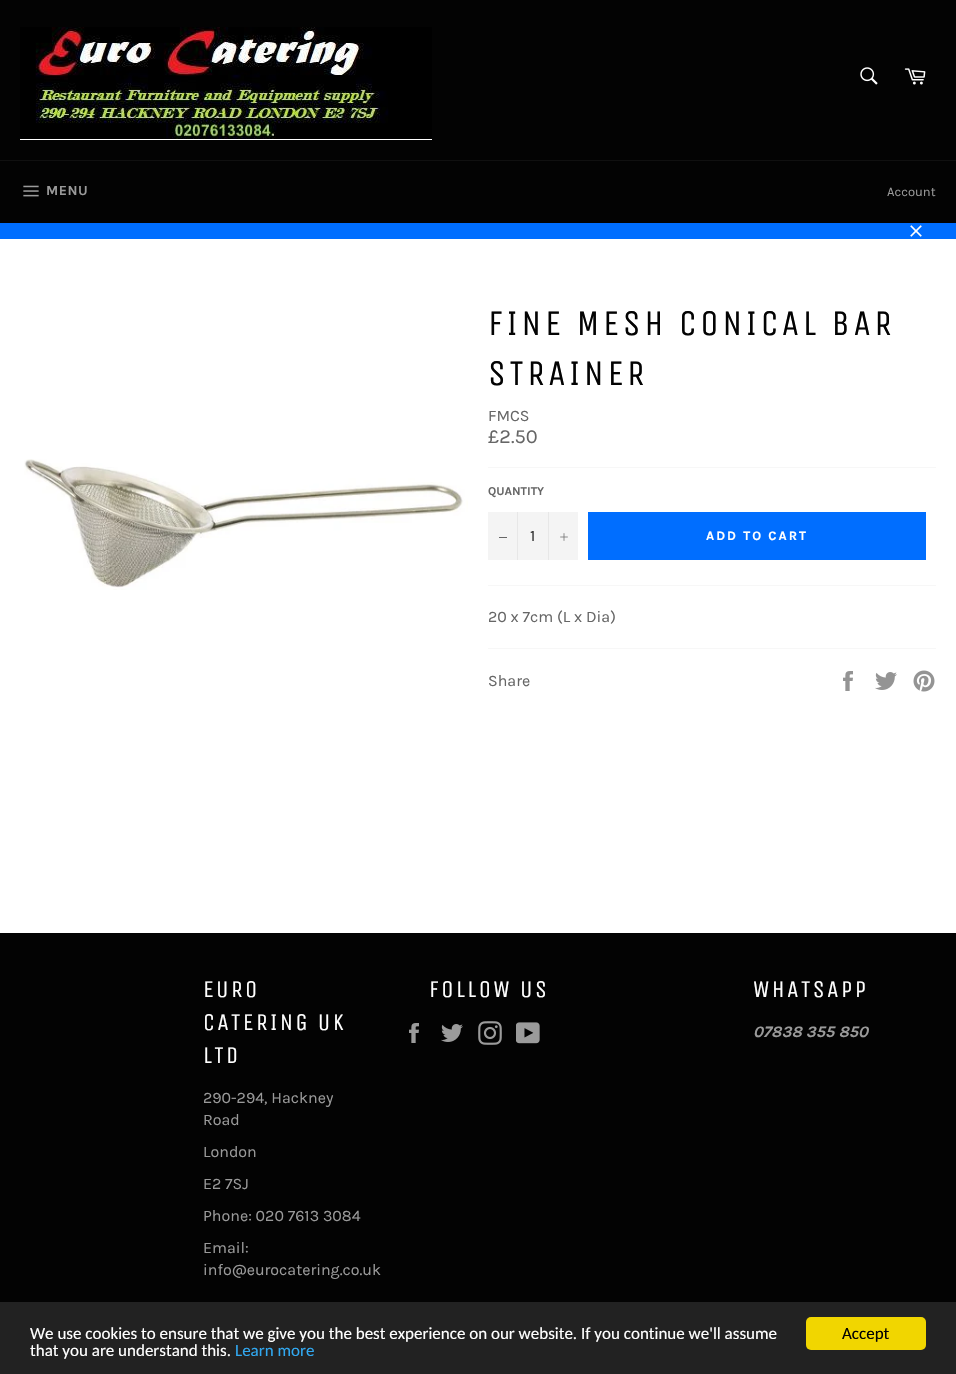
void draw(SkCanvas* c) {
SkPaint p;
p.setAntiAlias(true);
auto F=[&](const char* family, int weight, float size, bool italic = false){SkFontStyle style(weight, SkFontStyle::kNormal_Width,italic ? SkFontStyle::kItalic_Slant : SkFontStyle::kUpright_Slant);SkFont result(fontMgr->matchFamilyStyle(family, style), size);result.setSubpixel(true);return result;};
auto T=[&](const char* s, float x, float y, const SkFont& font){c->drawString(s, x, y, font, p);};
auto L=[&](const char* s, float x, float y, const SkFont& font, const SkPaint& ink, float letter, float word){std::vector<SkGlyphID> glyphs(font.countText(s, strlen(s), SkTextEncoding::kUTF8));std::vector<float> xs(glyphs.size());font.textToGlyphs(s, strlen(s), SkTextEncoding::kUTF8, glyphs);font.getXPos(glyphs, xs, x);float extra = 0;for (size_t i = 0; i < glyphs.size(); i++) {xs[i] += extra;extra += letter + word * (glyphs[i] == font.unicharToGlyph(' '));}c->drawTextBlob(SkTextBlob::MakeFromPosHGlyphs(glyphs, xs, y, font), 0, 0, ink);};
auto R=[&](float x, float y, float w, float h){c->drawRect(SkRect::MakeXYWH(x, y, w, h), p);};
auto Q=[&](float x, float y, float w, float h, float radius){c->drawRoundRect(SkRect::MakeXYWH(x, y, w, h), radius, radius, p);};
auto I=[&](const char* path, float x, float y, float w, float h){auto image = SkImages::DeferredFromEncodedData(SkData::MakeFromFileName(path));c->drawImageRect(image, SkRect::MakeXYWH(x, y, w, h), SkSamplingOptions());};
c->clear(0xff030303);
I("1.png",20,27,412,113);
I("2.png",860,67,18,18);
I("3.png",904,68,22,17);
p.setColor(0xff101010);
R(0,160,956,1);
I("4.png",23,185,16,12);
auto f1 = F("Karla",700,14);
p.setColor(0xff9a9a9a);
L("MENU",46,195,f1,p,.5,0);
auto f2 = F("Karla",400,13);
T("Account",887,196,f2);
p.setColor(0xff006eff);
R(0,223,956,16);
I("5.png",910,225,12,12);
p.setColor(0xffffffff);
R(0,239,956,694);
I("6.png",24,459,444,131);
auto f3 = F("Unica One",400,36);
p.setColor(0xff030303);
L("FINE MESH CONICAL BAR",488,335,f3,p,3.6,0);
L("STRAINER",488,385,f3,p,3.6,0);
auto f4 = F("Karla",400,16);
p.setColor(0xff666666);
T("FMCS",488,421,f4);
auto f5 = F("Karla",400,20);
T("£2.50",488,443,f5);
p.setColor(0xfff7f7f7);
R(488,467,448,1);
auto f6 = F("Karla",700,12);
p.setColor(0xff666666);
T("QUANTITY",488,495,f6);
p.setColor(0xfff4f4f4);
R(488,512,90,48);
p.setColor(0xffe7e7e7);
R(517,512,1,48);
p.setColor(0xff666666);
R(499,537,8,1);
p.setColor(0xff333333);
T("1",530,541,f4);
p.setColor(0xffe7e7e7);
R(548,512,1,48);
I("7.png",560,533,8,8);
p.setColor(0xff006eff);
R(588,512,338,48);
auto f7 = F("Karla",700,13);
p.setColor(0xffffffff);
L("ADD TO CART",706,540,f7,p,2,0);
p.setColor(0xfff7f7f7);
R(488,585,448,1);
p.setColor(0xff666666);
T("20 x 7cm (L x Dia)",488,622,f4);
p.setColor(0xfff7f7f7);
R(488,648,448,1);
p.setColor(0xff666666);
T("Share",488,686,f4);
I("8.png",843,671,10,20);
I("9.png",875,672,22,18);
I("10.png",913,670,22,22);
auto f8 = F("Unica One",400,24);
p.setColor(0xffffffff);
L("EURO",203,997,f8,p,2.4,0);
L("CATERING UK",203,1030,f8,p,2.4,0);
L("LTD",203,1063,f8,p,2.4,0);
p.setColor(0xff9a9a9a);
T("290-294, Hackney",203,1103,f4);
T("Road",203,1125,f4);
T("London",203,1157,f4);
T("E2 7SJ",203,1189,f4);
T("Phone: 020 7613 3084",203,1221,f4);
T("Email:",203,1253,f4);
T("info@eurocatering.co.uk",203,1275,f4);
p.setColor(0xffffffff);
L("FOLLOW US",429,997,f8,p,2.4,0);
I("11.png",409,1023,10,20);
I("12.png",441,1024,22,18);
I("13.png",478,1021,24,24);
I("14.png",516,1022,24,22);
L("WHATSAPP",753,997,f8,p,2.4,0);
auto f9 = F("Karla",700,16,true);
p.setColor(0xff9a9a9a);
T("07838 355 850",753,1037,f9);
p.setColor(0xff222222);
R(0,1302,956,72);
auto f10 = F("Carlito",400,17);
p.setColor(0xffffffff);
T("We use cookies to ensure that we give you the best experience on our website. If you continue we'll assume",30,1339,f10);
T("that you are understand this.",30,1356,f10);
p.setColor(0xff31a8f0);
T("Learn more",235,1356,f10);
p.setColor(0xfff1d600);
Q(806,1317,120,33,5);
p.setColor(0xff030303);
T("Accept",842,1339,f10);
}
